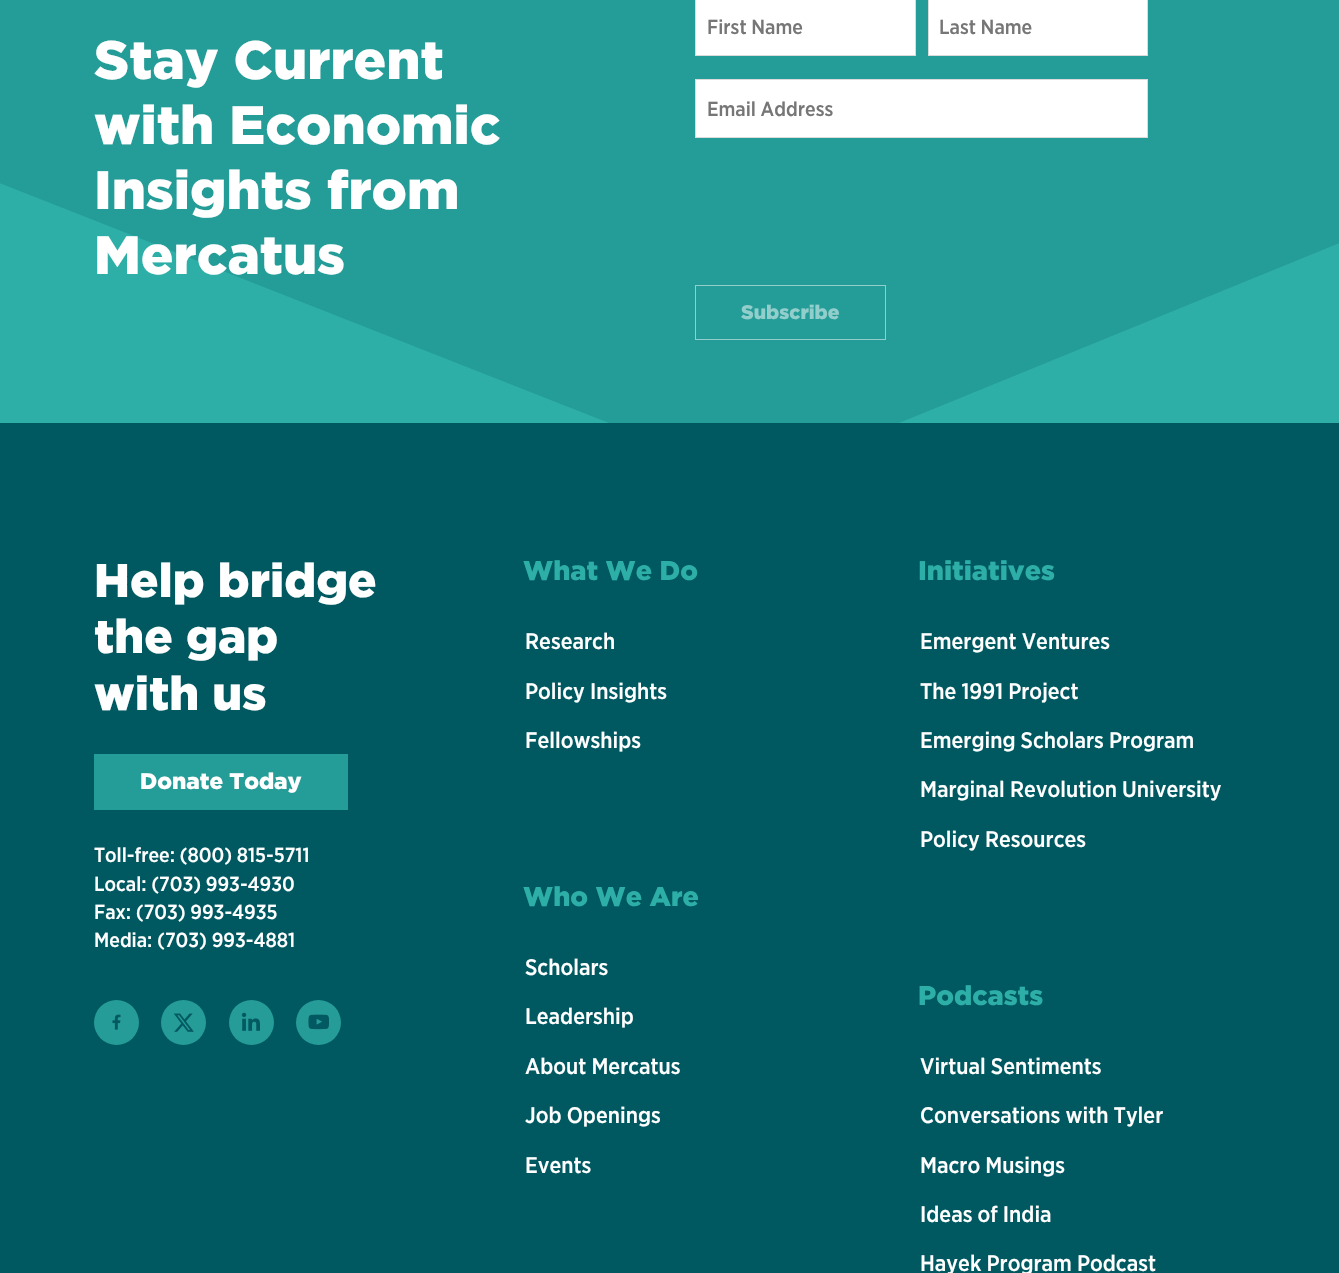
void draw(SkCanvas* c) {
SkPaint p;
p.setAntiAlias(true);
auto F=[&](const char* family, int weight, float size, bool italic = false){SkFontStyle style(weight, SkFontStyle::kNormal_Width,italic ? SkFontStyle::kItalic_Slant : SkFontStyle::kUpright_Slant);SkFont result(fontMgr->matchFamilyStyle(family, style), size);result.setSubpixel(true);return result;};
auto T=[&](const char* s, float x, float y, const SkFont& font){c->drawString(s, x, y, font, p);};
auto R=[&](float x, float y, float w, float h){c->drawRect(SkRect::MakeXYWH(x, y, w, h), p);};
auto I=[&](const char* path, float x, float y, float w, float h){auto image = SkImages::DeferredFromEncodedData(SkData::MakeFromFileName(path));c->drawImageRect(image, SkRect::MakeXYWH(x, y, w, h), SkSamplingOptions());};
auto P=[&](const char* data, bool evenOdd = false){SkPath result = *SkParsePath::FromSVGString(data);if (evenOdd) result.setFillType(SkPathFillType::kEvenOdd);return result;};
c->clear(0xff005961);
p.setColor(0xff249c97);
R(0,0,1339,423);
p.setColor(0xff2dafa8);
c->drawPath(P("M-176 423h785l-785-309z"),p);
c->drawPath(P("M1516 423v-252l-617 252z"),p);
auto f1 = F("Gotham",900,54);
p.setColor(0xffffffff);
T("Stay Current",94,79,f1);
T("with Economic",94,144,f1);
T("Insights from",94,209,f1);
T("Mercatus",94,274,f1);
c->drawRect(SkRect::MakeXYWH(695.5,-.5,220,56),p);
p.setStroke(true);
p.setStrokeWidth(1);
p.setColor(0xffdbdbdb);
c->drawRect(SkRect::MakeXYWH(695.5,-.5,220,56),p);
auto f2 = F("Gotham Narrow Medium",500,20.25);
p.setStroke(false);
p.setColor(0xff767676);
T("First Name",707,34,f2);
p.setColor(0xffffffff);
c->drawRect(SkRect::MakeXYWH(928.5,-.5,219,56),p);
p.setStroke(true);
p.setColor(0xffdbdbdb);
c->drawRect(SkRect::MakeXYWH(928.5,-.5,219,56),p);
p.setStroke(false);
p.setColor(0xff767676);
T("Last Name",939,34,f2);
p.setColor(0xffffffff);
c->drawRect(SkRect::MakeXYWH(695.5,79.5,452,58),p);
p.setStroke(true);
p.setColor(0xffdbdbdb);
c->drawRect(SkRect::MakeXYWH(695.5,79.5,452,58),p);
p.setStroke(false);
p.setColor(0xff767676);
T("Email Address",707,116,f2);
p.setStroke(true);
p.setColor(0xff92cecb);
c->drawRect(SkRect::MakeXYWH(695.5,285.5,190,54),p);
auto f3 = F("Gotham",900,19.5);
p.setStroke(false);
T("Subscribe",741,319,f3);
auto f4 = F("Gotham",900,47.25);
p.setColor(0xffffffff);
T("Help bridge",94,597,f4);
T("the gap",94,653,f4);
T("with us",94,710,f4);
p.setColor(0xff249c97);
R(94,754,254,56);
auto f5 = F("Gotham",900,22.5);
p.setColor(0xffffffff);
T("Donate Today",140,789,f5);
T("Toll-free: (800) 815-5711",94,862,f2);
T("Local: (703) 993-4930",94,891,f2);
T("Fax: (703) 993-4935",94,919,f2);
T("Media: (703) 993-4881",94,947,f2);
p.setColor(0xff259c97);
c->drawCircle(116.5,1022.5,22.5,p);
I("1.png",112,1014,9,16);
c->drawCircle(183.5,1022.5,22.5,p);
I("2.png",174,1013,20,19);
c->drawCircle(251.5,1022.5,22.5,p);
I("3.png",241,1012,19,19);
c->drawCircle(318.5,1022.5,22.5,p);
I("4.png",308,1014,21,16);
auto f6 = F("Gotham",900,27);
p.setColor(0xff2dafa8);
T("What We Do",523,580,f6);
auto f7 = F("Gotham Narrow Medium",500,22.5);
p.setColor(0xffffffff);
T("Research",525,649,f7);
T("Policy Insights",525,699,f7);
T("Fellowships",525,748,f7);
p.setColor(0xff2dafa8);
T("Initiatives",918,580,f6);
p.setColor(0xffffffff);
T("Emergent Ventures",920,649,f7);
T("The 1991 Project",920,699,f7);
T("Emerging Scholars Program",920,748,f7);
T("Marginal Revolution University",920,797,f7);
T("Policy Resources",920,847,f7);
p.setColor(0xff2dafa8);
T("Who We Are",523,906,f6);
p.setColor(0xffffffff);
T("Scholars",525,975,f7);
T("Leadership",525,1024,f7);
T("About Mercatus",525,1074,f7);
T("Job Openings",525,1123,f7);
T("Events",525,1173,f7);
p.setColor(0xff2dafa8);
T("Podcasts",918,1005,f6);
p.setColor(0xffffffff);
T("Virtual Sentiments",920,1074,f7);
T("Conversations with Tyler",920,1123,f7);
T("Macro Musings",920,1173,f7);
T("Ideas of India",920,1222,f7);
T("Hayek Program Podcast",920,1271,f7);
}
